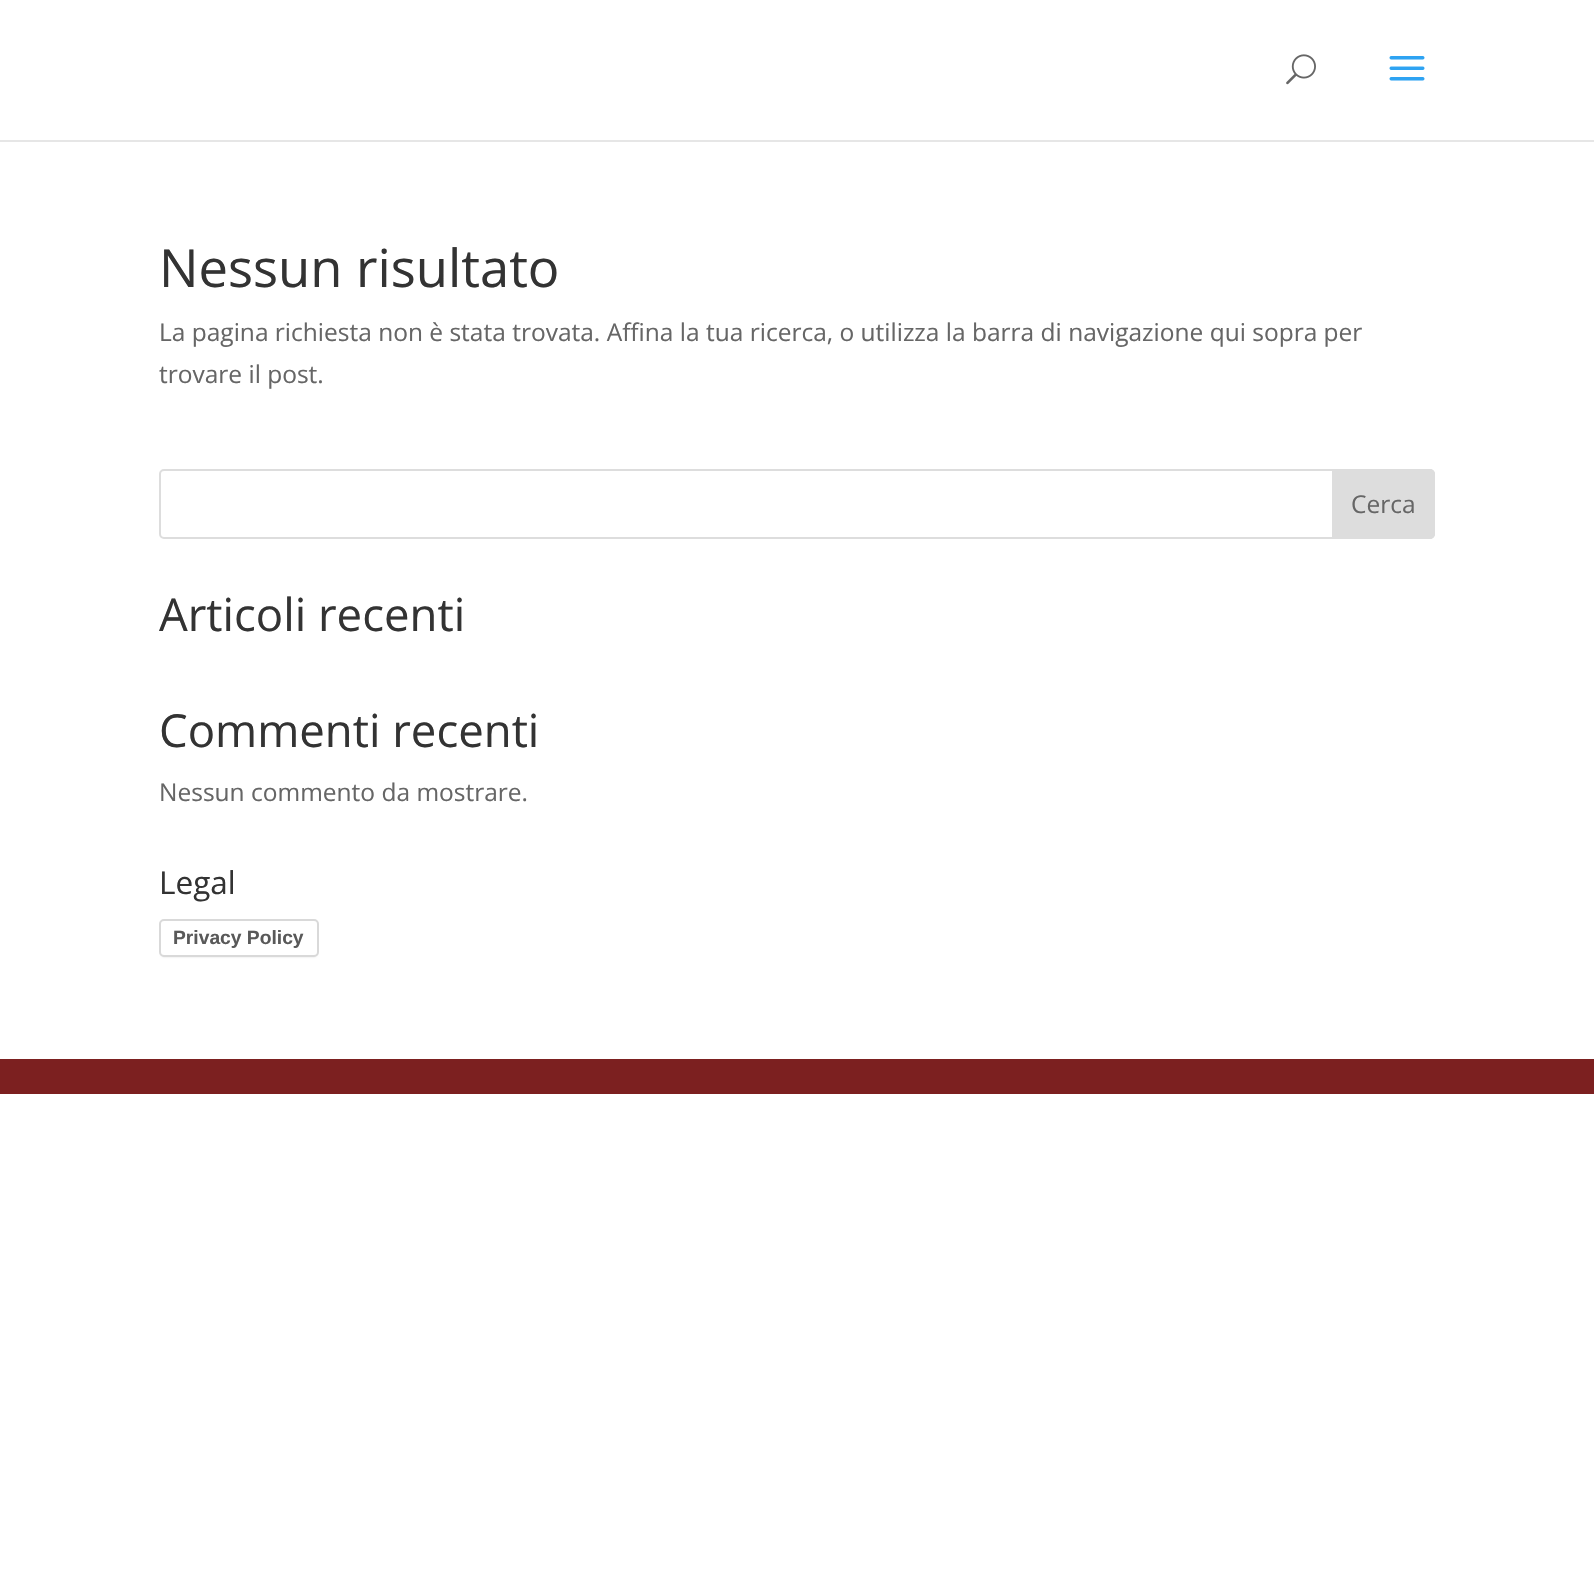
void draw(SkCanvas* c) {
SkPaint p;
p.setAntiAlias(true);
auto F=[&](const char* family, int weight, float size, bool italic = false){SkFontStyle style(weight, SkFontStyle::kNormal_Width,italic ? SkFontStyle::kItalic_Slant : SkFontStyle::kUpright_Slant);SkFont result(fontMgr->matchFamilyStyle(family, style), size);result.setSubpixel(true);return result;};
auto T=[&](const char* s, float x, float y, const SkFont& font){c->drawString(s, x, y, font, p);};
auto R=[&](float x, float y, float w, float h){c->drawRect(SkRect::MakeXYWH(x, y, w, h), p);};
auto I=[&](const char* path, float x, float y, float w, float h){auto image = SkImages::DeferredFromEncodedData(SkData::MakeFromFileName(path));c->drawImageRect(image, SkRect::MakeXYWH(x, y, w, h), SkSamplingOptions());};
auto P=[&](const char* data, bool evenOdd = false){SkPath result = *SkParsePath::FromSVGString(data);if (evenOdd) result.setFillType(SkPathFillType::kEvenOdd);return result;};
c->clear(0xffffffff);
p.setColor(0xffe6e6e6);
R(0,140,1594,2);
I("1.png",1286,54,30,31);
I("2.png",1389,56,36,25);
auto f1 = F("Open Sans",400,52.5);
p.setColor(0xff333333);
T("Nessun risultato",159,287,f1);
auto f2 = F("Open Sans",400,24.5);
p.setColor(0xff666666);
T("La pagina richiesta non è stata trovata. Affina la tua ricerca, o utilizza la barra di navigazione qui sopra per",159,341,f2);
T("trovare il post.",159,383,f2);
p.setStroke(true);
p.setStrokeWidth(2);
p.setColor(0xffdddddd);
c->drawRoundRect(SkRect::MakeXYWH(160,470,1274,68),4,4,p);
p.setStroke(false);
c->drawPath(P("M1333 470h97c2 0 4 2 4 4v60c0 2-2 4-4 4h-97z"),p);
p.setStroke(true);
c->drawPath(P("M1333 470h97c2 0 4 2 4 4v60c0 2-2 4-4 4h-97z"),p);
p.setStroke(false);
p.setColor(0xff666666);
T("Cerca",1351,513,f2);
auto f3 = F("Open Sans",400,45.5);
p.setColor(0xff333333);
T("Articoli recenti",159,631,f3);
T("Commenti recenti",159,747,f3);
p.setColor(0xff666666);
T("Nessun commento da mostrare.",159,801,f2);
auto f4 = F("Open Sans",400,31.5);
p.setColor(0xff333333);
T("Legal",159,894,f4);
p.setColor(0x26000000);
p.setMaskFilter(SkMaskFilter::MakeBlur(kNormal_SkBlurStyle, 1));
c->drawRoundRect(SkRect::MakeXYWH(161,922,156,35),4,4,p);
p.setMaskFilter(nullptr);
p.setColor(0xffffffff);
c->drawRoundRect(SkRect::MakeXYWH(160,920,158,36),4,4,p);
p.setStroke(true);
p.setColor(0xffd9d9d9);
c->drawRoundRect(SkRect::MakeXYWH(160,920,158,36),4,4,p);
auto f5 = F("Liberation Sans",700,19.25);
p.setStroke(false);
p.setColor(0xff595959);
T("Privacy Policy",173,944,f5);
p.setColor(0xff7c2020);
R(0,1059,1594,35);
}
